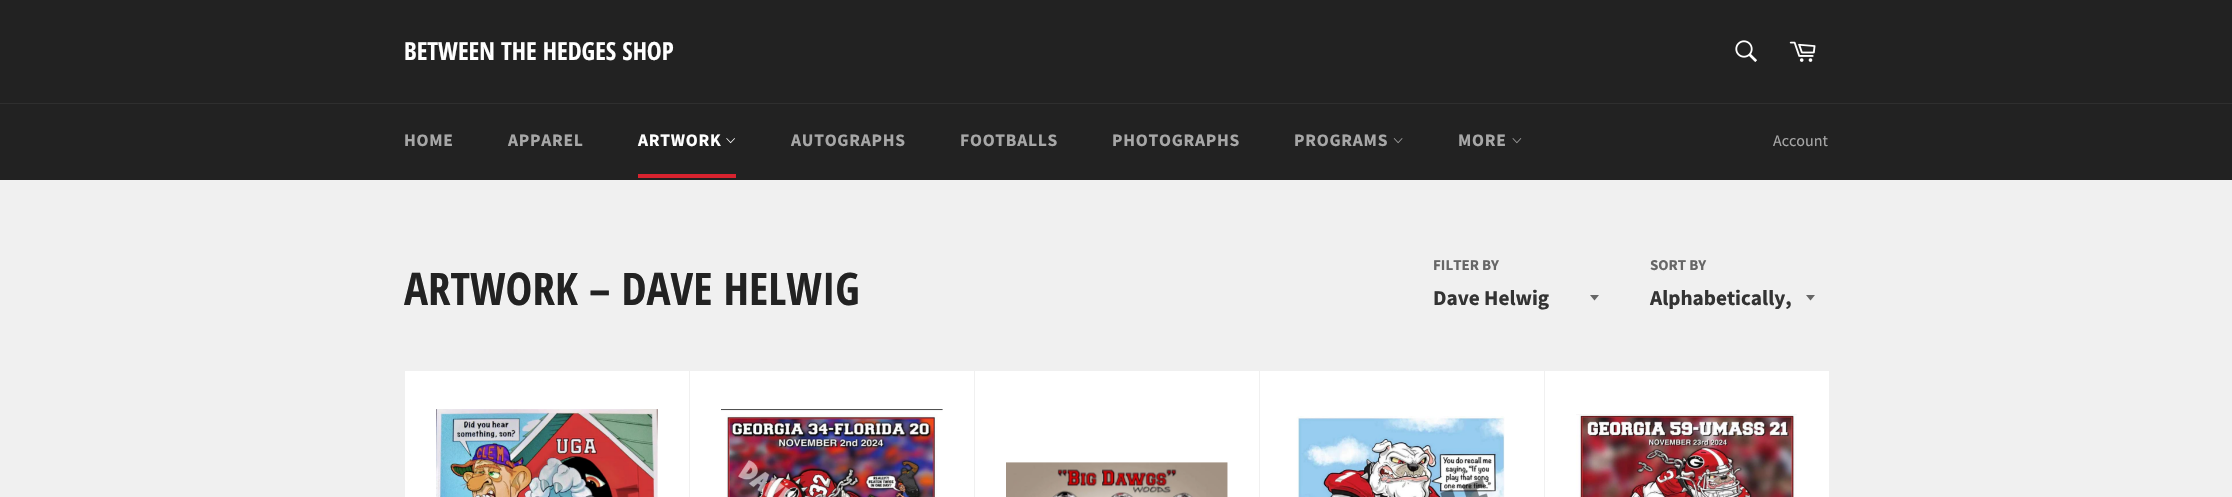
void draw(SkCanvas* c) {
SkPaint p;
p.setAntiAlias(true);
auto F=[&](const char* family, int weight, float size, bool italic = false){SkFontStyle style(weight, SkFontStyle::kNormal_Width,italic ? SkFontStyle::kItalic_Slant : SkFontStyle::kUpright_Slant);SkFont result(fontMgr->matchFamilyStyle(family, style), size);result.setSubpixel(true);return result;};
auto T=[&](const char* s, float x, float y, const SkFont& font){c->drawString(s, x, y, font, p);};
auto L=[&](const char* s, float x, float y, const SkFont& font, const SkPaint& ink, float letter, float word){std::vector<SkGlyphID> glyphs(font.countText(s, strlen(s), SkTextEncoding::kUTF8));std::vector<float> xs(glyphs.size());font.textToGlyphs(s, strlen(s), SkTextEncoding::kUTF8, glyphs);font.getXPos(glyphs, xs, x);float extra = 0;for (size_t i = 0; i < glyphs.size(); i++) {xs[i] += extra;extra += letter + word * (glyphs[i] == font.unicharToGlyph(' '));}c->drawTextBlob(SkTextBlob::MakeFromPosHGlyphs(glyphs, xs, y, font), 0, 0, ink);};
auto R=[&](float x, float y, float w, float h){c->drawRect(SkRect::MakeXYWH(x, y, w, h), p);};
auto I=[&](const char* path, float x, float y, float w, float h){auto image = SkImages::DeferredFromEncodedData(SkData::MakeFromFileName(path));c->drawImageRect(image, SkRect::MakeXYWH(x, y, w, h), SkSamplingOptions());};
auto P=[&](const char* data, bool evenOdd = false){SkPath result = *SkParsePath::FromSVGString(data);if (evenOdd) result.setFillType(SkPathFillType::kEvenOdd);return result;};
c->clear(0xfff0f0f0);
p.setColor(0xff222222);
R(0,0,2232,180);
auto f1 = F("Open Sans Condensed",700,25);
p.setColor(0xffffffff);
T("BETWEEN THE HEDGES SHOP",404,60,f1);
I("1.png",1735,40,22,22);
I("2.png",1789,41,27,21);
p.setColor(0xff2f2f2f);
R(0,103,2232,1);
auto f2 = F("Source Sans Pro",700,17.5);
p.setColor(0xffa7a7a7);
L("HOME",404,146,f2,p,.75,0);
L("APPAREL",508,146,f2,p,.75,0);
p.setColor(0xffffffff);
L("ARTWORK",638,146,f2,p,.75,0);
I("3.png",726,138,9,6);
p.setColor(0xffd8232f);
R(638,174,98,4);
p.setColor(0xffa7a7a7);
L("AUTOGRAPHS",791,146,f2,p,.75,0);
L("FOOTBALLS",960,146,f2,p,.75,0);
L("PHOTOGRAPHS",1112,146,f2,p,.75,0);
L("PROGRAMS",1294,146,f2,p,.75,0);
I("4.png",1393,138,10,6);
L("MORE",1458,146,f2,p,.75,0);
I("5.png",1512,138,10,6);
auto f3 = F("Source Sans Pro",400,16);
T("Account",1773,146,f3);
auto f4 = F("Open Sans Condensed",700,45);
p.setColor(0xff222222);
T("ARTWORK – DAVE HELWIG",404,305,f4);
auto f5 = F("Source Sans Pro",700,15);
p.setColor(0xff666666);
T("FILTER BY",1433,270,f5);
c->drawPath(P("M1590 295l4.5 5.5l4.5-5.5z"),p);
auto f6 = F("Source Sans Pro",700,21.25);
p.setColor(0xff333333);
T("Dave Helwig",1433,305,f6);
p.setColor(0xff666666);
T("SORT BY",1650,270,f5);
c->drawPath(P("M1806 295l4.5 5.5l4.5-5.5z"),p);
p.setColor(0xff333333);
T("Alphabetically,",1650,305,f6);
p.setColor(0xffffffff);
R(405,371,284,126);
I("6.png",436,409,222,88);
R(690,371,284,126);
I("7.png",721,409,222,88);
R(975,371,284,126);
I("8.png",1006,462,222,35);
R(1260,371,284,126);
I("9.png",1296,416,209,81);
R(1545,371,284,126);
I("10.png",1576,414,221,83);
}
